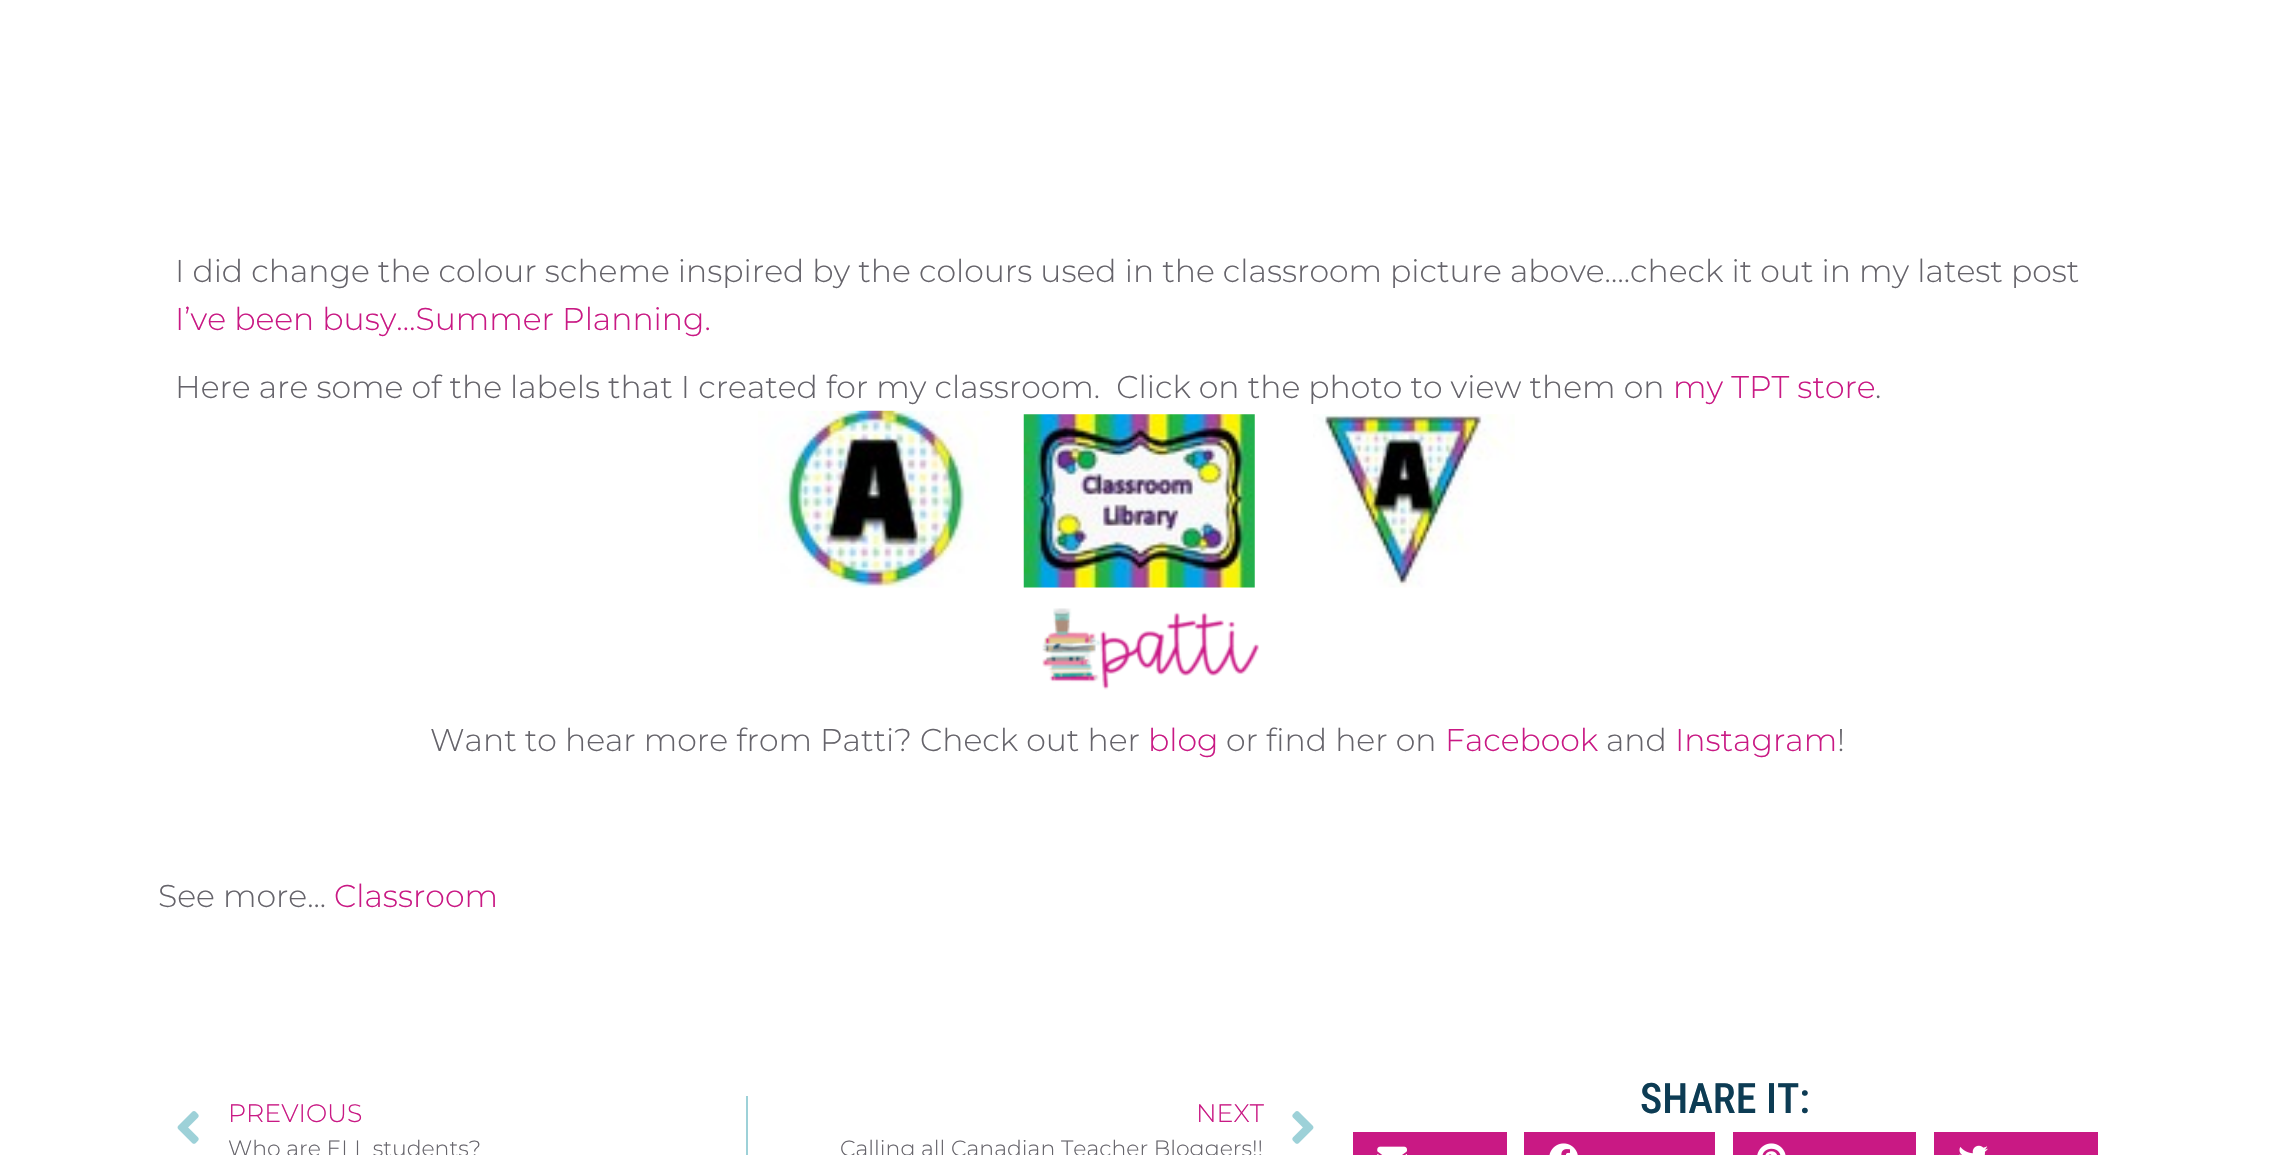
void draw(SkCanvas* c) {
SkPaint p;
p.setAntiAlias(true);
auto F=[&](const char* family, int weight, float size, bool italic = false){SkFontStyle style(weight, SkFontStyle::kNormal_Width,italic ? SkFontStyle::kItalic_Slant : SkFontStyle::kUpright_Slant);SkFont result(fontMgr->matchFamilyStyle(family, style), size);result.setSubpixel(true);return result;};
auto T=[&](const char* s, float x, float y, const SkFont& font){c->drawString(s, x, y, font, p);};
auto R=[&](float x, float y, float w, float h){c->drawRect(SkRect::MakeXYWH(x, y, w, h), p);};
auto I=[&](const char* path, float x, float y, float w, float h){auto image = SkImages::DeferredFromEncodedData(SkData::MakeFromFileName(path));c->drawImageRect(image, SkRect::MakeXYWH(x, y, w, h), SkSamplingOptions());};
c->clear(0xffffffff);
auto f1 = F("Montserrat",300,31.5);
p.setColor(0xff65636a);
T("I did change the colour scheme inspired by the colours used in the classroom picture above….check it out in my latest post",175,282,f1);
p.setColor(0xffc91984);
T("I’ve been busy…Summer Planning.",175,330,f1);
p.setColor(0xff65636a);
T("Here are some of the labels that I created for my classroom.  Click on the photo to view them on",175,398,f1);
p.setColor(0xffc91984);
T("my TPT store",1673,398,f1);
p.setColor(0xff65636a);
T(".",1875,398,f1);
I("1.png",758,410,232,178);
I("2.png",1023,414,232,174);
I("3.png",1313,414,202,174);
I("4.png",1042,608,217,82);
T("Want to hear more from Patti? Check out her",430,751,f1);
p.setColor(0xffc91984);
T("blog",1148,751,f1);
p.setColor(0xff65636a);
T("or find her on",1226,751,f1);
p.setColor(0xffc91984);
T("Facebook",1445,751,f1);
p.setColor(0xff65636a);
T("and",1606,751,f1);
p.setColor(0xffc91984);
T("Instagram",1675,751,f1);
p.setColor(0xff65636a);
T("!",1837,751,f1);
T("See more...",158,907,f1);
p.setColor(0xffc91984);
T("Classroom",334,907,f1);
auto f2 = F("Roboto Condensed",500,42);
p.setColor(0xff0d3c54);
T("SHARE IT:",1640,1113,f2);
p.setColor(0xffc91984);
R(1353,1132,154,23);
I("5.png",1377,1146,30,9);
R(1524,1132,191,23);
I("6.png",1549,1143,29,12);
R(1733,1132,183,23);
I("7.png",1757,1143,29,12);
R(1934,1132,164,23);
I("8.png",1959,1145,29,10);
I("9.png",177,1111,22,33);
auto f3 = F("Montserrat",300,25.25);
T("PREVIOUS",228,1122,f3);
auto f4 = F("Montserrat",300,22);
p.setColor(0xff65636a);
T("Who are ELL students?",228,1156,f4);
p.setColor(0xff9dd1d8);
R(746,1096,2,59);
p.setColor(0xffc91984);
T("NEXT",1196,1122,f3);
p.setColor(0xff65636a);
T("Calling all Canadian Teacher Bloggers!!",840,1156,f4);
I("10.png",1292,1111,22,33);
}
